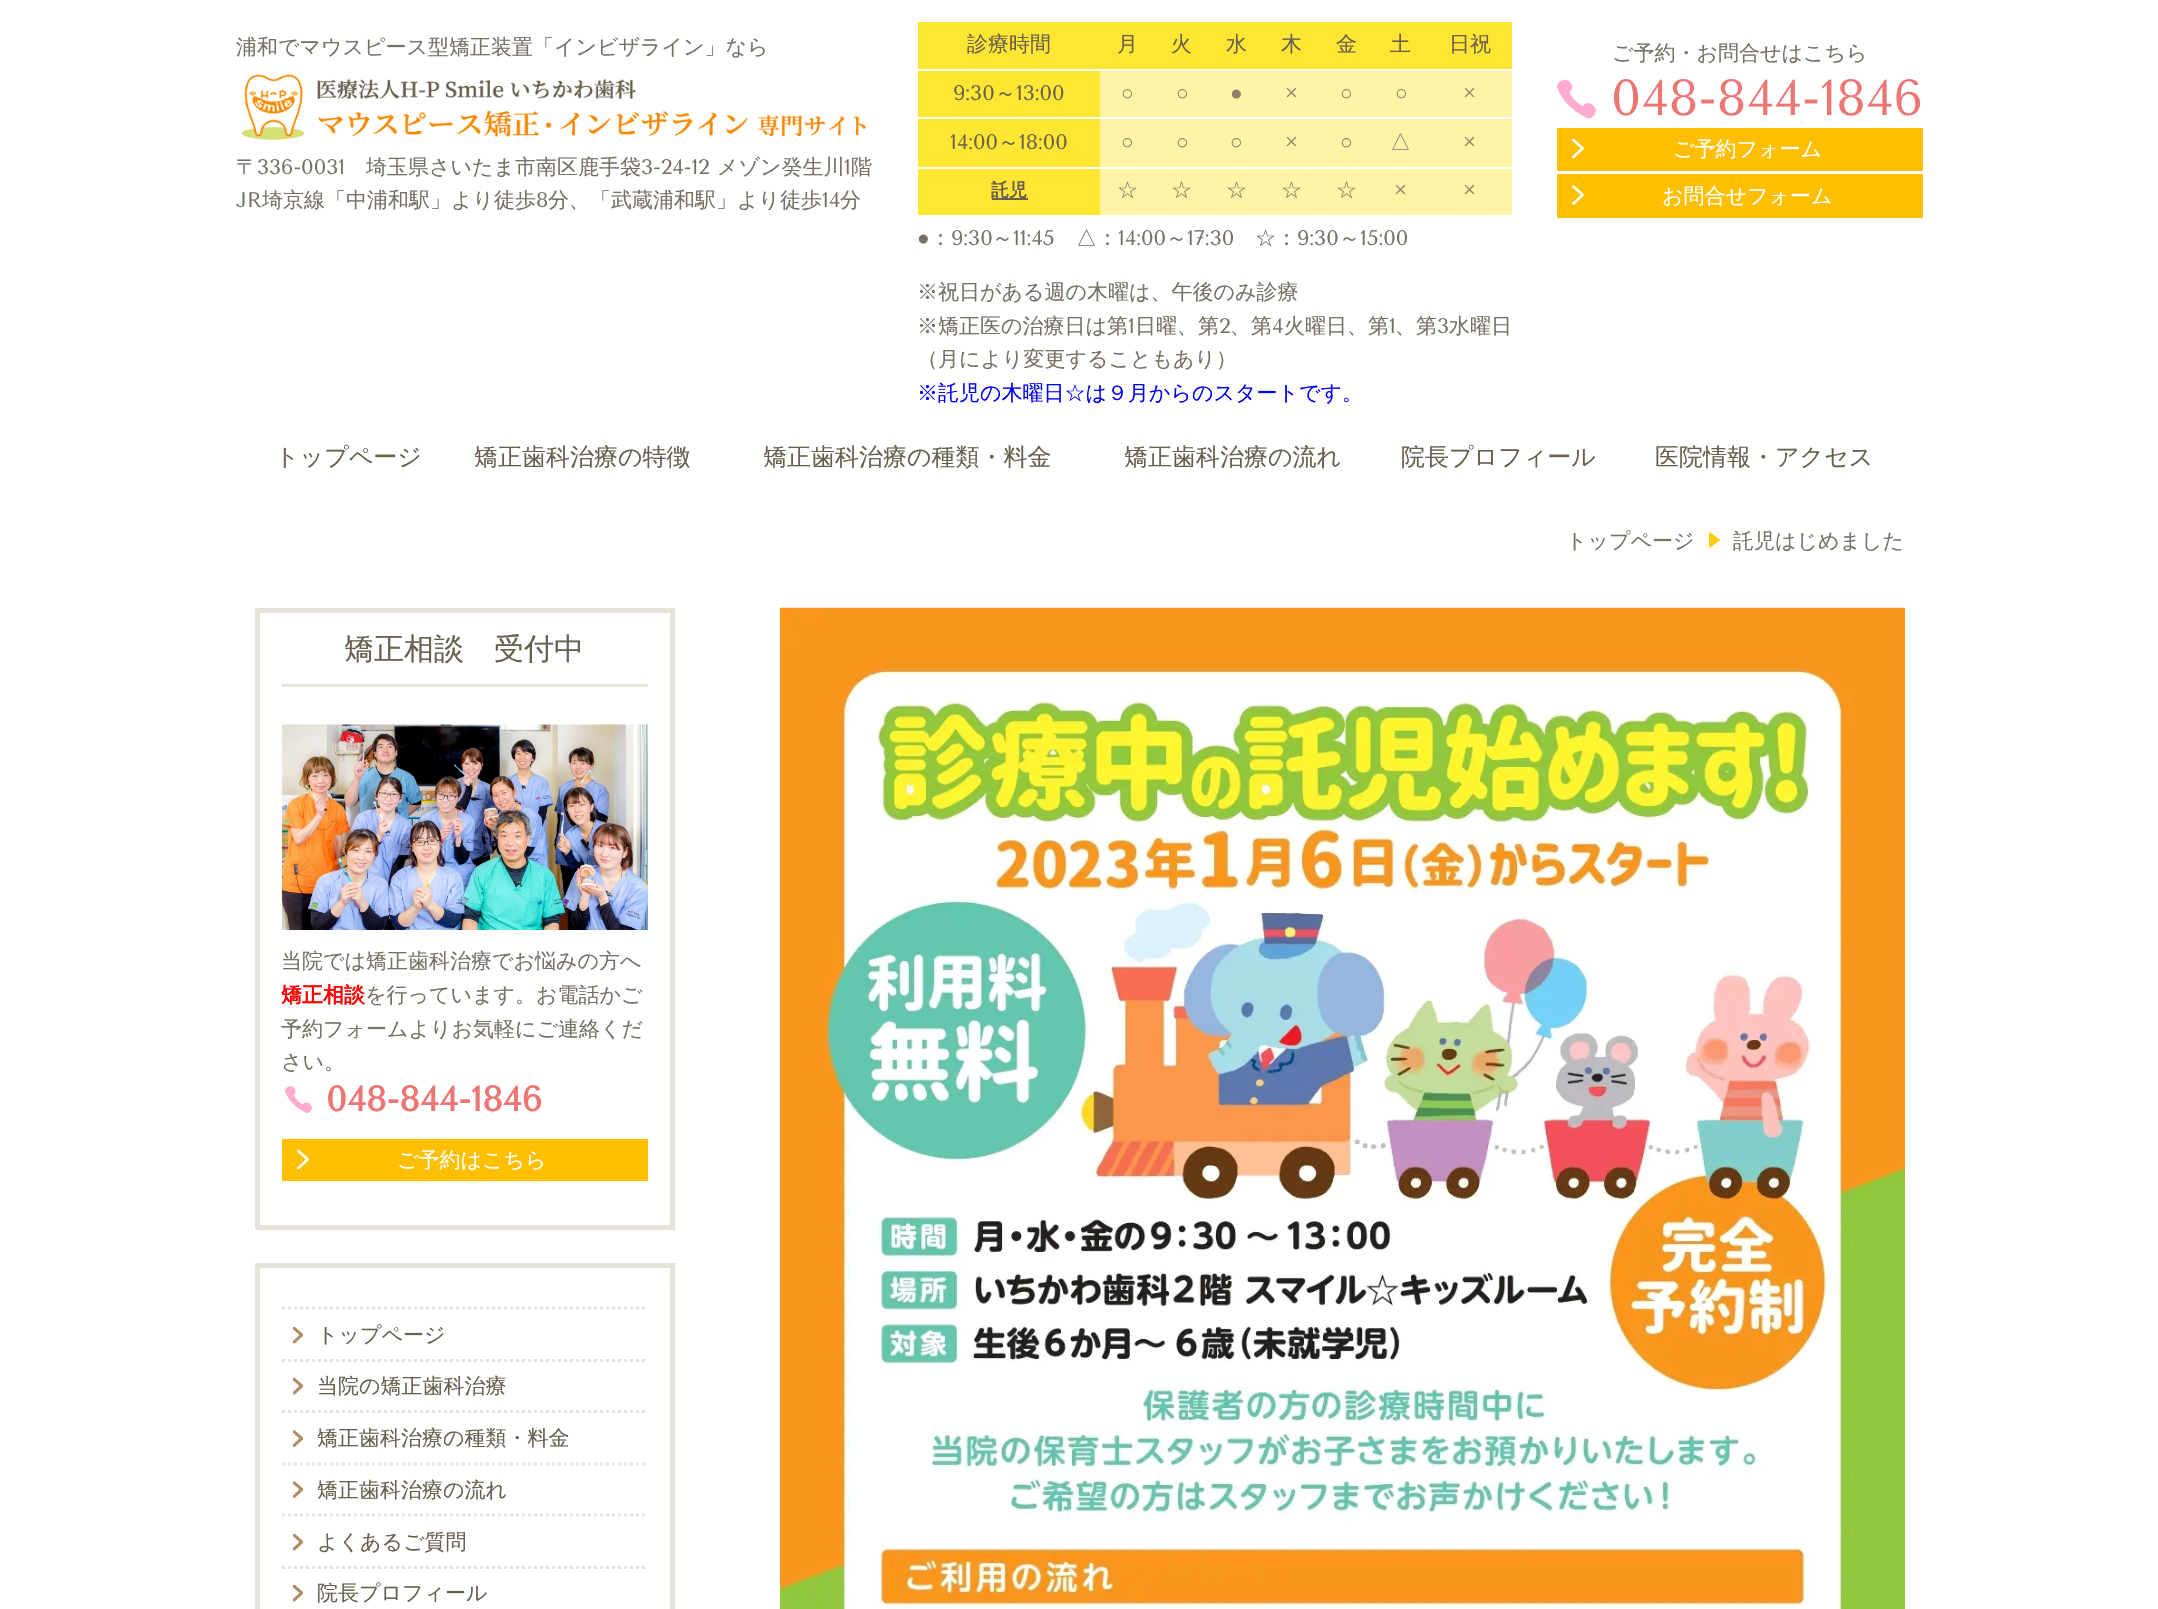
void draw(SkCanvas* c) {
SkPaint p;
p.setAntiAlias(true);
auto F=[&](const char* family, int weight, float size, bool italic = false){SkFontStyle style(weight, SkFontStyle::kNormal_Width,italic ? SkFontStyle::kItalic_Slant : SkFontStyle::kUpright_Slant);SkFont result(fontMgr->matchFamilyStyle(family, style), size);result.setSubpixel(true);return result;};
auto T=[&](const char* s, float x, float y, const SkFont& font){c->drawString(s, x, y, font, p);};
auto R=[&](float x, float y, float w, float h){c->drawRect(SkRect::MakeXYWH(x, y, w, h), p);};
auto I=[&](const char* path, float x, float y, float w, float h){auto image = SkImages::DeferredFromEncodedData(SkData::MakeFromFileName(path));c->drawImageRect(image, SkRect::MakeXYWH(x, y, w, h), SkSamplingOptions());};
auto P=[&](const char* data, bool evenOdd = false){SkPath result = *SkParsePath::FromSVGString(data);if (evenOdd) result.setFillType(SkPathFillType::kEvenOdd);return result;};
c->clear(0xffffffff);
auto f1 = F("WenQuanYi Zen Hei",500,21);
p.setColor(0xff767065);
T("浦和でマウスピース型矯正装置「インビザライン」なら",236,54,f1);
I("1.png",241,74,625,66);
T("〒",236,174,f1);
auto f2 = F("Tenor Sans",400,21);
T("336-0031",257,174,f2);
T("埼玉県さいたま市南区鹿手袋",366,174,f1);
T("3-24-12",641,174,f2);
T("メゾン癸生川",717,174,f1);
T("1",844,174,f2);
T("階",851,174,f1);
T("JR",236,207,f2);
T("埼京線「中浦和駅」より徒歩",262,207,f1);
T("8",536,207,f2);
T("分、「武蔵浦和駅」より徒歩",548,207,f1);
T("14",822,207,f2);
T("分",840,207,f1);
p.setColor(0xffffe632);
R(918,22,594,47);
p.setColor(0xff675f4f);
T("診療時間",967,51,f1);
T("月",1117,51,f1);
T("火",1171,51,f1);
T("水",1226,51,f1);
T("木",1281,51,f1);
T("金",1336,51,f1);
T("土",1390,51,f1);
T("日祝",1449,51,f1);
p.setColor(0xffffe632);
R(918,71,182,46);
p.setColor(0xff675f4f);
T("9:30",953,100,f2);
T("～",995,100,f1);
T("13:00",1016,100,f2);
p.setColor(0xfffff4a5);
R(1100,71,412,46);
auto f3 = F("Liberation Sans",400,21);
p.setColor(0xff957d6c);
T("○",1121,100,f3);
T("○",1176,100,f3);
T("●",1230,100,f3);
T("×",1285,100,f2);
T("○",1340,100,f3);
T("○",1395,100,f3);
T("×",1463,100,f2);
p.setColor(0xffffe632);
R(918,119,182,48);
p.setColor(0xff675f4f);
T("14:00",950,149,f2);
T("～",998,149,f1);
T("18:00",1019,149,f2);
p.setColor(0xfffff4a5);
R(1100,119,412,48);
p.setColor(0xff957d6c);
T("○",1121,149,f3);
T("○",1176,149,f3);
T("○",1230,149,f3);
T("×",1285,149,f2);
T("○",1340,149,f3);
T("△",1390,149,f1);
T("×",1463,149,f2);
p.setColor(0xffffe632);
R(918,169,182,46);
p.setColor(0xff675f4f);
R(992,198,36,2);
auto f4 = F("WenQuanYi Zen Hei",700,18);
T("託児",991,196,f4);
p.setColor(0xfffff4a5);
R(1100,169,412,46);
p.setColor(0xff957d6c);
T("☆",1117,197,f1);
T("☆",1171,197,f1);
T("☆",1226,197,f1);
T("☆",1281,197,f1);
T("☆",1336,197,f1);
T("×",1394,197,f2);
T("×",1463,197,f2);
p.setColor(0xff767065);
T("●",917,245,f3);
T("：",930,245,f1);
T("9:30",951,245,f2);
T("～",992,245,f1);
T("11:45",1013,245,f2);
T("△：",1076,245,f1);
T("14:00",1118,245,f2);
T("～",1166,245,f1);
T("17:30",1187,245,f2);
T("☆：",1255,245,f1);
T("9:30",1297,245,f2);
T("～",1339,245,f1);
T("15:00",1360,245,f2);
T("※祝日がある週の木曜は、午後のみ診療",917,299,f1);
T("※矯正医の治療日は第",917,333,f1);
T("1",1128,333,f2);
T("日曜、第",1135,333,f1);
T("2",1219,333,f2);
T("、第",1230,333,f1);
T("4",1272,333,f2);
T("火曜日、第",1284,333,f1);
T("1",1389,333,f2);
T("、第",1395,333,f1);
T("3",1437,333,f2);
T("水曜日",1449,333,f1);
T("（月により変更することもあり）",917,366,f1);
p.setColor(0xff0000ff);
T("※託児の木曜日☆は９月からのスタートです。",917,400,f1);
p.setColor(0xff767065);
T("ご予約・お問合せはこちら",1612,60,f1);
I("2.png",1557,80,39,39);
auto f5 = F("Tenor Sans",400,50.5);
p.setColor(0xffed7573);
T("048-844-1846",1611,115,f5);
p.setColor(0xfffebf00);
R(1557,128,366,43);
I("3.png",1572,138,12,21);
p.setColor(0xffffffff);
T("ご予約フォーム",1673,156,f1);
p.setColor(0xfffebf00);
R(1557,174,366,44);
I("4.png",1572,185,12,20);
p.setColor(0xffffffff);
T("お問合せフォーム",1662,203,f1);
auto f6 = F("WenQuanYi Zen Hei",500,24);
p.setColor(0xff675f4f);
T("トップページ",275,465,f6);
T("矯正歯科治療の特徴",474,465,f6);
T("矯正歯科治療の種類・料金",763,465,f6);
T("矯正歯科治療の流れ",1124,465,f6);
T("院長プロフィール",1401,465,f6);
T("医院情報・アクセス",1655,465,f6);
p.setColor(0xff767065);
T("トップページ",1566,548,f1);
c->save();
c->clipRect(SkRect::MakeXYWH(1709,531,12,18));
p.setColor(0xffffcc00);
c->drawPath(P("M1708.5 531.5l12 8.5l-12 8.5z",true),p);
c->restore();
p.setColor(0xff767065);
T("託児はじめました",1733,548,f1);
p.setStroke(true);
p.setStrokeWidth(5);
p.setColor(0xffe6e3db);
c->drawRect(SkRect::MakeXYWH(257.5,610.5,415,617),p);
p.setStroke(false);
R(282,684,366,3);
auto f7 = F("WenQuanYi Zen Hei",500,30);
p.setColor(0xff675f4f);
T("矯正相談　受付中",344,659,f7);
I("5.png",282,724,366,206);
p.setColor(0xff767065);
T("当院では矯正歯科治療でお悩みの方へ",281,968,f1);
auto f8 = F("WenQuanYi Zen Hei",700,21);
p.setColor(0xffff0000);
T("矯正相談",281,1002,f8);
p.setColor(0xff767065);
T("を行っています。お電話かご",365,1002,f1);
T("予約フォームよりお気軽にご連絡くだ",281,1036,f1);
T("さい。",281,1069,f1);
I("6.png",285,1086,27,27);
auto f9 = F("Tenor Sans",700,35);
p.setColor(0xffed7573);
T("048-844-1846",326,1111,f9);
p.setColor(0xfffebf00);
R(282,1139,366,42);
I("3.png",297,1149,12,21);
p.setColor(0xffffffff);
T("ご予約はこちら",397,1167,f1);
p.setStroke(true);
p.setColor(0xffe6e3db);
c->drawRect(SkRect::MakeXYWH(257.5,1265.5,415,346),p);
p.setStrokeWidth(3);
p.setPathEffect(SkDashPathEffect::Make({{3,3}}, 0));
c->drawPath(P("M282 1308h366"),p);
p.setPathEffect(nullptr);
I("7.png",293,1326,10,18);
p.setStroke(false);
p.setColor(0xff675f4f);
T("トップページ",317,1342,f1);
p.setStroke(true);
p.setColor(0xffe6e3db);
p.setPathEffect(SkDashPathEffect::Make({{3,3}}, 0));
c->drawPath(P("M282 1360.5h366"),p);
p.setPathEffect(nullptr);
I("7.png",293,1377,10,18);
p.setStroke(false);
p.setColor(0xff675f4f);
T("当院の矯正歯科治療",317,1393,f1);
p.setStroke(true);
p.setColor(0xffe6e3db);
p.setPathEffect(SkDashPathEffect::Make({{3,3}}, 0));
c->drawPath(P("M282 1411.5h366"),p);
p.setPathEffect(nullptr);
I("8.png",293,1430,10,17);
p.setStroke(false);
p.setColor(0xff675f4f);
T("矯正歯科治療の種類・料金",317,1445,f1);
p.setStroke(true);
p.setColor(0xffe6e3db);
p.setPathEffect(SkDashPathEffect::Make({{3,3}}, 0));
c->drawPath(P("M282 1464h366"),p);
p.setPathEffect(nullptr);
I("8.png",293,1481,10,17);
p.setStroke(false);
p.setColor(0xff675f4f);
T("矯正歯科治療の流れ",317,1497,f1);
p.setStroke(true);
p.setColor(0xffe6e3db);
p.setPathEffect(SkDashPathEffect::Make({{3,3}}, 0));
c->drawPath(P("M282 1515h366"),p);
p.setPathEffect(nullptr);
I("7.png",293,1533,10,18);
p.setStroke(false);
p.setColor(0xff675f4f);
T("よくあるご質問",317,1549,f1);
p.setStroke(true);
p.setColor(0xffe6e3db);
p.setPathEffect(SkDashPathEffect::Make({{3,3}}, 0));
c->drawPath(P("M282 1567.5h366"),p);
p.setPathEffect(nullptr);
I("7.png",293,1584,10,18);
p.setStroke(false);
p.setColor(0xff675f4f);
T("院長プロフィール",317,1600,f1);
I("9.png",780,607,1125,1002);
}
